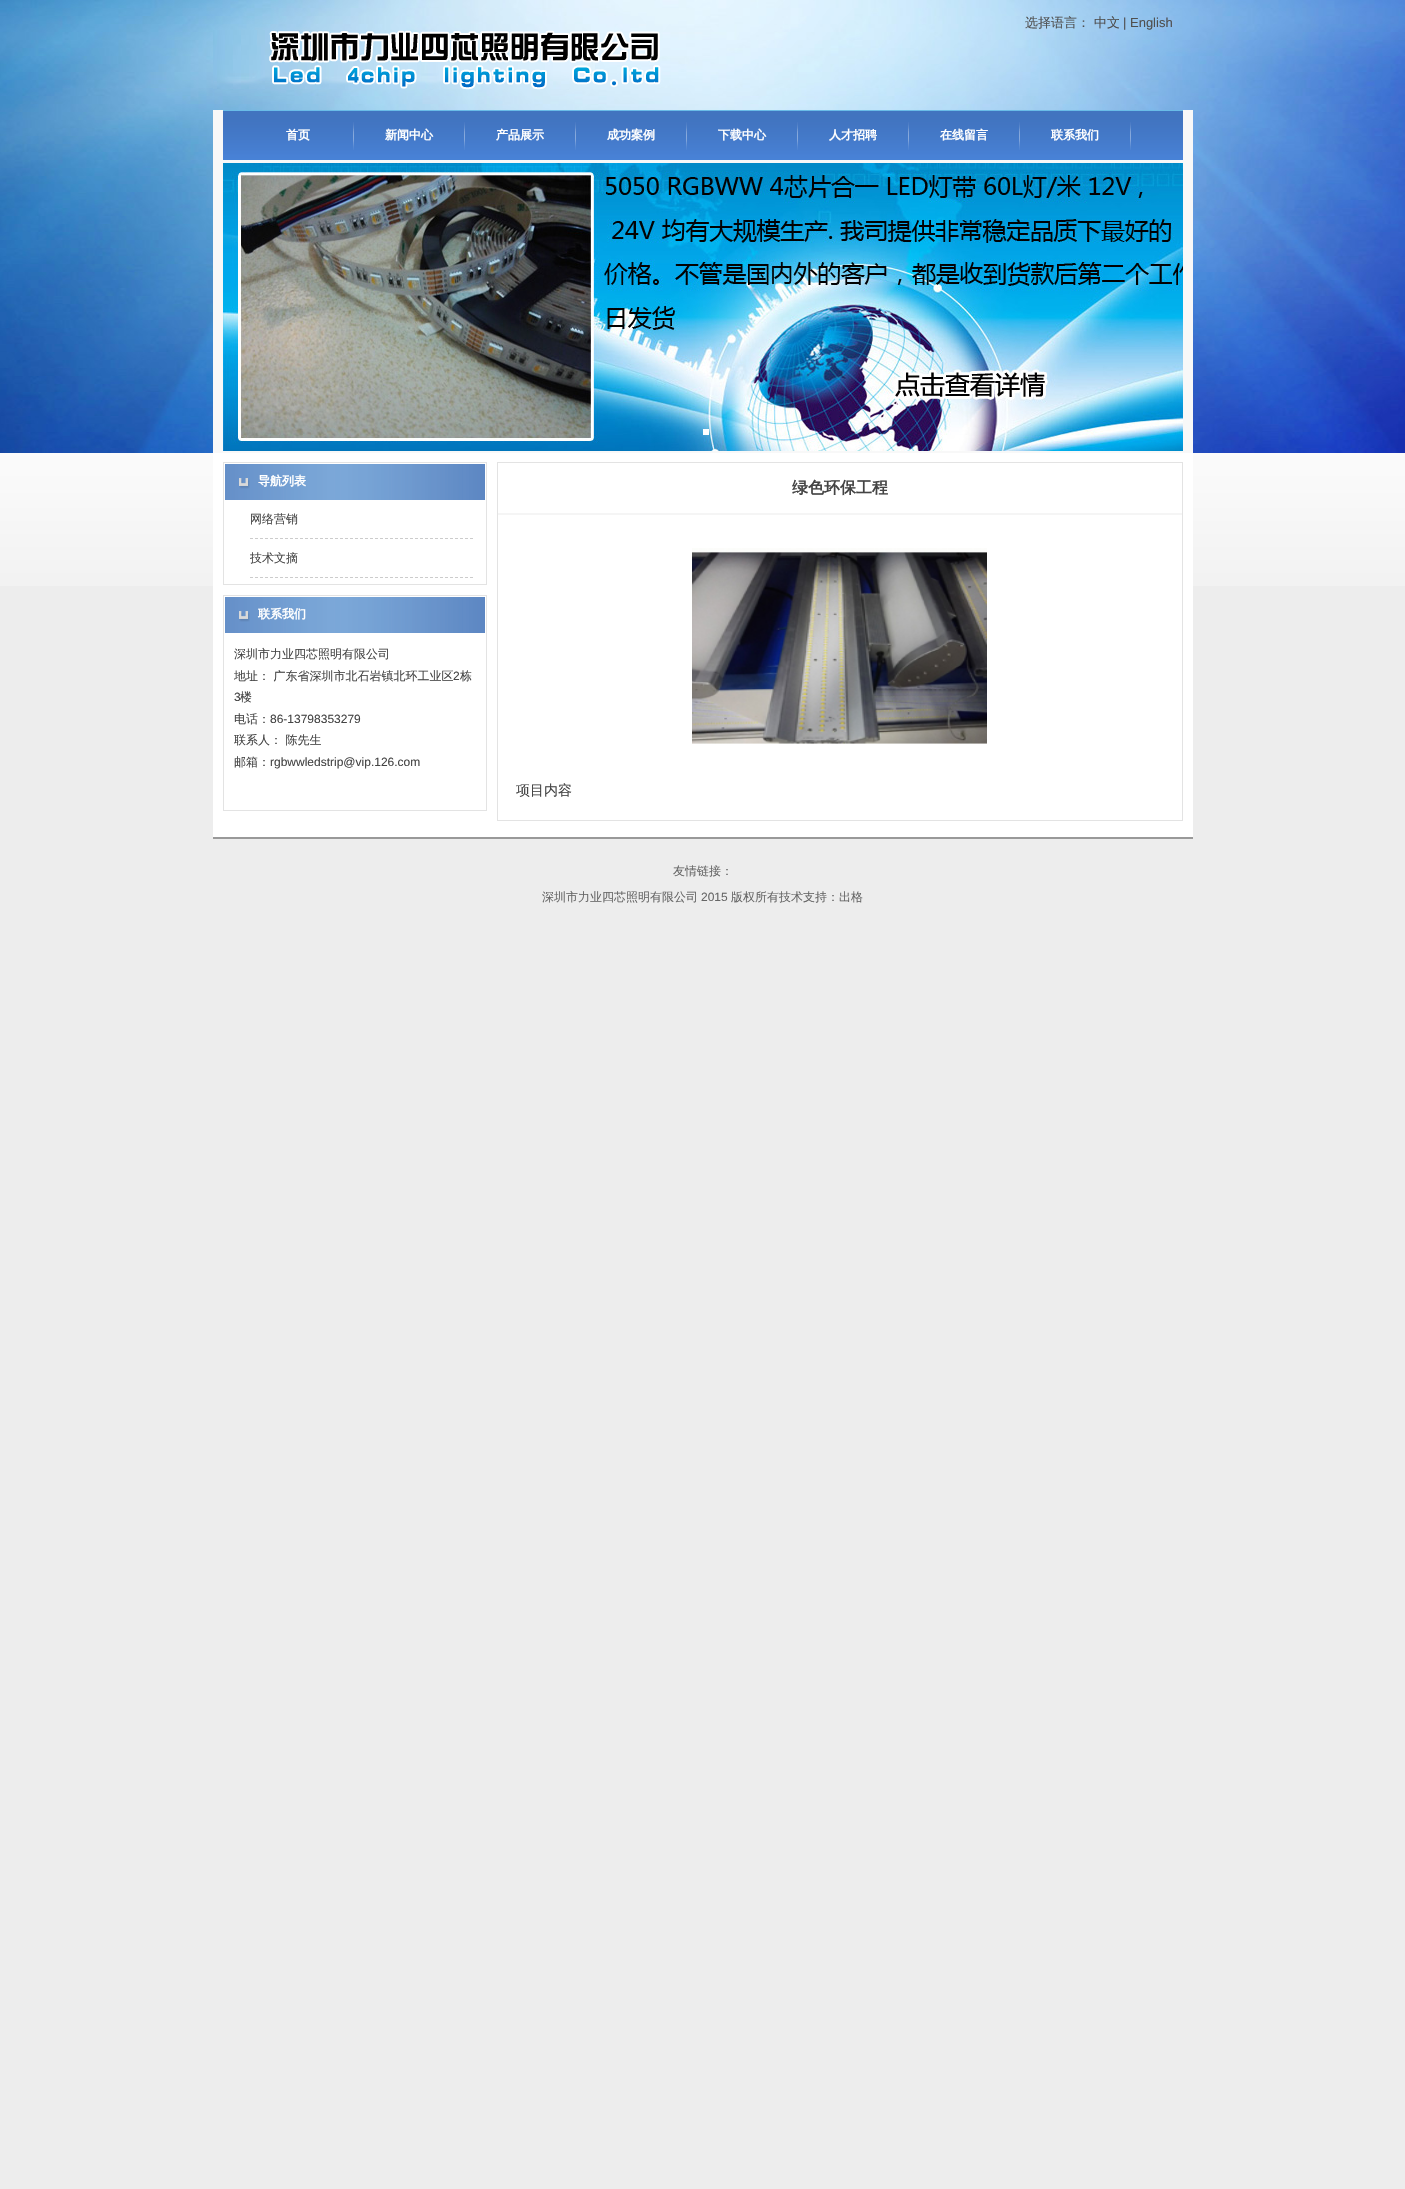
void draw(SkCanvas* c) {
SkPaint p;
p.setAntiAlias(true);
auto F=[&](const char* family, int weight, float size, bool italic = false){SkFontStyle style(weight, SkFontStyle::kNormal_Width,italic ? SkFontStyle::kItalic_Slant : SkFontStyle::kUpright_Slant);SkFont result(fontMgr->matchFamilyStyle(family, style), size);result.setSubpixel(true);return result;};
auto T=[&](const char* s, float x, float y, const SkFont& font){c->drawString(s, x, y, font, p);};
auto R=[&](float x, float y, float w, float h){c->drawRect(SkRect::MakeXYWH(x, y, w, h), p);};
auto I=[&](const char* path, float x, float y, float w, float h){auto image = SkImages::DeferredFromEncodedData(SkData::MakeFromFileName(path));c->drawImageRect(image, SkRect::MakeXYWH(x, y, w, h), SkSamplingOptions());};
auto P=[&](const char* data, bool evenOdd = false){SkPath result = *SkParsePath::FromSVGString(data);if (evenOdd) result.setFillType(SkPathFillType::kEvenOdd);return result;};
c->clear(0xffededed);
I("1.png",0,0,1405,453);
auto f1 = F("WenQuanYi Zen Hei",500,13);
p.setColor(0xff4f4f4f);
T("选择语言： 中文",1025,27,f1);
auto f2 = F("Liberation Sans",400,13);
T("| English",1123,27,f2);
I("2.png",213,30,448,60);
p.setColor(0xfff8f8f8);
R(213,110,980,343);
I("3.png",223,110,960,50);
I("4.png",353,122,1,28);
auto f3 = F("WenQuanYi Zen Hei",700,12);
p.setColor(0xffffffff);
T("首页",286,139,f3);
I("4.png",464,122,1,28);
T("新闻中心",385,139,f3);
I("4.png",575,122,1,28);
T("产品展示",496,139,f3);
I("4.png",686,122,1,28);
T("成功案例",607,139,f3);
I("4.png",797,122,1,28);
T("下载中心",718,139,f3);
I("4.png",908,122,1,28);
T("人才招聘",829,139,f3);
I("4.png",1019,122,1,28);
T("在线留言",940,139,f3);
I("4.png",1130,122,1,28);
T("联系我们",1051,139,f3);
I("5.png",223,163,960,288);
R(703,429,6,6);
I("6.png",0,453,1405,133);
R(213,453,980,384);
I("7.png",223,462,264,39);
T("导航列表",258,485,f3);
p.setColor(0xffe3e3e3);
R(486,501,1,84);
R(223,584,264,1);
R(223,501,1,84);
p.setStroke(true);
p.setStrokeWidth(1);
p.setColor(0xffcccccc);
p.setPathEffect(SkDashPathEffect::Make({{3,2}}, 0));
c->drawPath(P("M250 538.5h223"),p);
p.setPathEffect(nullptr);
auto f4 = F("WenQuanYi Zen Hei",500,12);
p.setStroke(false);
p.setColor(0xff444444);
T("网络营销",250,523,f4);
p.setStroke(true);
p.setColor(0xffcccccc);
p.setPathEffect(SkDashPathEffect::Make({{3,2}}, 0));
c->drawPath(P("M250 577.5h223"),p);
p.setPathEffect(nullptr);
p.setStroke(false);
p.setColor(0xff444444);
T("技术文摘",250,562,f4);
I("7.png",223,595,264,39);
p.setColor(0xffffffff);
T("联系我们",258,618,f3);
p.setColor(0xffe3e3e3);
R(486,634,1,177);
R(223,810,264,1);
R(223,634,1,177);
p.setColor(0xff444444);
T("深圳市力业四芯照明有限公司",234,658,f4);
T("地址： 广东省深圳市北石岩镇北环工业区",234,680,f4);
auto f5 = F("Liberation Sans",400,12);
T("2",453,680,f5);
T("栋",460,680,f4);
T("3",234,701,f5);
T("楼",240,701,f4);
T("电话：",234,723,f4);
T("86-13798353279",270,723,f5);
T("联系人： 陈先生",234,744,f4);
T("邮箱：",234,766,f4);
T("rgbwwledstrip@vip.126.com",270,766,f5);
p.setStroke(true);
p.setColor(0xffe3e3e3);
c->drawRect(SkRect::MakeXYWH(497.5,462.5,685,358),p);
p.setStroke(false);
p.setColor(0xfff5f5f5);
R(498,513,684,2);
auto f6 = F("WenQuanYi Zen Hei",700,16);
p.setColor(0xff444444);
T("绿色环保工程",792,493,f6);
I("8.png",692,548,295,196);
auto f7 = F("WenQuanYi Zen Hei",500,14);
T("项目内容",516,795,f7);
p.setColor(0xff999999);
R(213,837,980,2);
p.setColor(0xff666666);
T("友情链接：",673,875,f4);
T("深圳市力业四芯照明有限公司",542,901,f4);
T("2015",701,901,f5);
T("版权所有技术支持：出格",731,901,f4);
}
